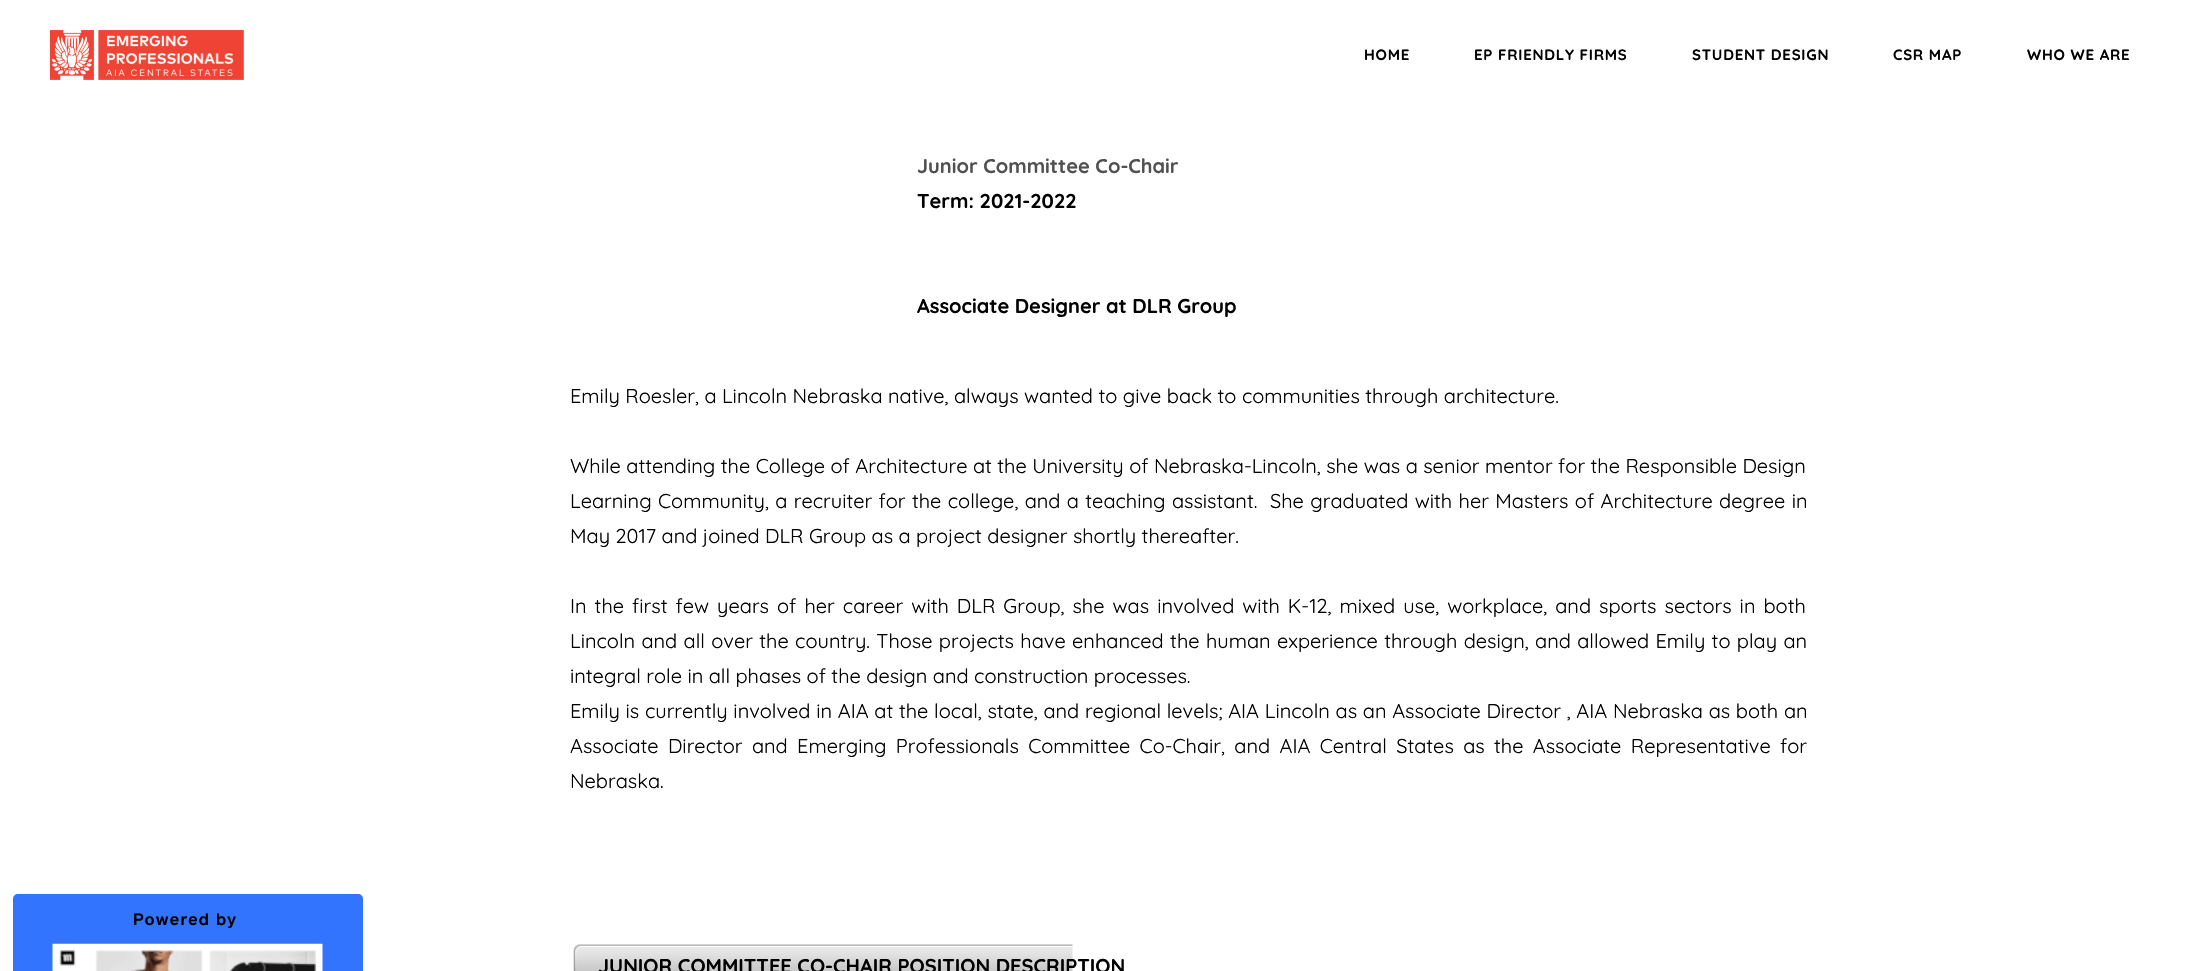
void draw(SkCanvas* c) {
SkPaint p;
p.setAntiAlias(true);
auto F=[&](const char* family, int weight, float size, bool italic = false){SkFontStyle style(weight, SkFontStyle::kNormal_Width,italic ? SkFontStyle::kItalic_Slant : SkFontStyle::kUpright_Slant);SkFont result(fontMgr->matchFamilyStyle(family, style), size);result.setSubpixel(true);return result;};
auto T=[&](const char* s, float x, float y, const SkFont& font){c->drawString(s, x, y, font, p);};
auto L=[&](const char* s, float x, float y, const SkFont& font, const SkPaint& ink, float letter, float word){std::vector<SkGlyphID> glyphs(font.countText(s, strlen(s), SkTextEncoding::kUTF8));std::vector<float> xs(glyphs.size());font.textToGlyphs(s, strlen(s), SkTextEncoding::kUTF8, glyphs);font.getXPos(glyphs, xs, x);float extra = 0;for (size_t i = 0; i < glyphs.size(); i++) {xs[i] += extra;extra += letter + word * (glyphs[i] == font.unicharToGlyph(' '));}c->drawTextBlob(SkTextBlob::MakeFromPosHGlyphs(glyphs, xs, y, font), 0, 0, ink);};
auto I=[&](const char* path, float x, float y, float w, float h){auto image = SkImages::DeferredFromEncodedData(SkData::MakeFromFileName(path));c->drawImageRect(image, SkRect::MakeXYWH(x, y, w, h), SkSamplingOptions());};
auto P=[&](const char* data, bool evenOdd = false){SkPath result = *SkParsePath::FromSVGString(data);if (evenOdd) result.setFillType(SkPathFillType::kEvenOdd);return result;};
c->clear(0xffffffff);
p.setColor(0xff3374ff);
c->drawPath(P("M18 894h340c3 0 5 2 5 5v72h-350v-72c0-3 2-5 5-5z"),p);
auto f1 = F("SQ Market",500,16.25);
p.setColor(0xff000000);
L("Powered by",133,925,f1,p,1.25,0);
I("1.png",52,943,271,28);
I("2.png",50,30,194,50);
auto f2 = F("Quicksand",700,15);
L("HOME",1364,60,f2,p,.75,0);
L("EP FRIENDLY FIRMS",1474,60,f2,p,.75,0);
L("STUDENT DESIGN",1692,60,f2,p,.75,0);
L("CSR MAP",1893,60,f2,p,.75,0);
L("WHO WE ARE",2027,60,f2,p,.75,0);
auto f3 = F("Quicksand",700,20);
p.setColor(0xff515151);
T("Junior Committee Co-Chair",917,173,f3);
p.setColor(0xff000000);
T("Term: 2021-2022",917,208,f3);
T("Associate Designer at DLR Group",917,313,f3);
auto f4 = F("Quicksand",400,20);
T("Emily Roesler, a Lincoln Nebraska native, always wanted to give back to communities through architecture.",570,403,f4);
T("While attending the College of Architecture at the University of Nebraska-Lincoln, she was a senior mentor for the Responsible Design",570,473,f4);
L("Learning Community, a recruiter for the college, and a teaching assistant.  She graduated with her Masters of Architecture degree in",570,508,f4,p,0,.9);
T("May 2017 and joined DLR Group as a project designer shortly thereafter.",570,543,f4);
L("In the first few years of her career with DLR Group, she was involved with K-12, mixed use, workplace, and sports sectors in both",570,613,f4,p,0,2.6);
L("Lincoln and all over the country. Those projects have enhanced the human experience through design, and allowed Emily to play an",570,648,f4,p,0,.9);
T("integral role in all phases of the design and construction processes.",570,683,f4);
L("Emily is currently involved in AIA at the local, state, and regional levels; AIA Lincoln as an Associate Director , AIA Nebraska as both an",570,718,f4,p,0,.25);
L("Associate Director and Emerging Professionals Committee Co-Chair, and AIA Central States as the Associate Representative for",570,753,f4,p,0,3.9);
T("Nebraska.",570,788,f4);
I("3.png",573,944,500,27);
T("JUNIOR COMMITTEE CO-CHAIR POSITION DESCRIPTION",598,973,f3);
}
